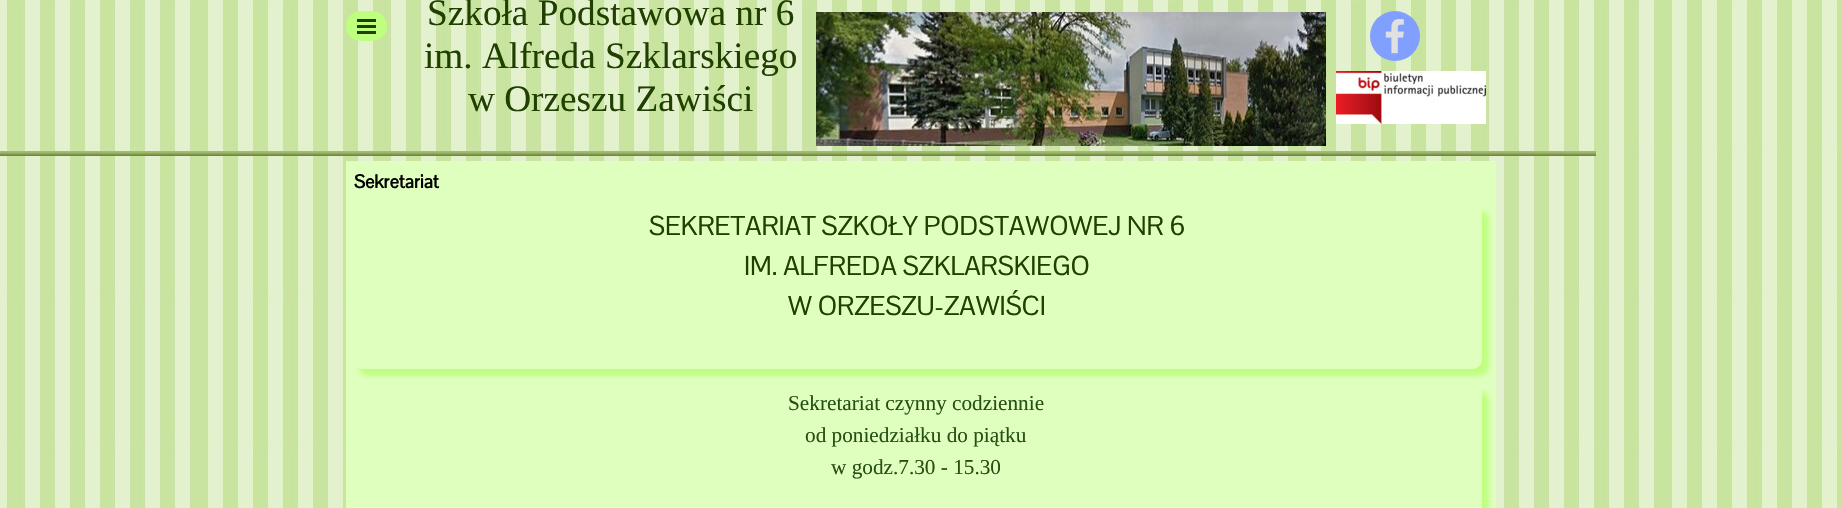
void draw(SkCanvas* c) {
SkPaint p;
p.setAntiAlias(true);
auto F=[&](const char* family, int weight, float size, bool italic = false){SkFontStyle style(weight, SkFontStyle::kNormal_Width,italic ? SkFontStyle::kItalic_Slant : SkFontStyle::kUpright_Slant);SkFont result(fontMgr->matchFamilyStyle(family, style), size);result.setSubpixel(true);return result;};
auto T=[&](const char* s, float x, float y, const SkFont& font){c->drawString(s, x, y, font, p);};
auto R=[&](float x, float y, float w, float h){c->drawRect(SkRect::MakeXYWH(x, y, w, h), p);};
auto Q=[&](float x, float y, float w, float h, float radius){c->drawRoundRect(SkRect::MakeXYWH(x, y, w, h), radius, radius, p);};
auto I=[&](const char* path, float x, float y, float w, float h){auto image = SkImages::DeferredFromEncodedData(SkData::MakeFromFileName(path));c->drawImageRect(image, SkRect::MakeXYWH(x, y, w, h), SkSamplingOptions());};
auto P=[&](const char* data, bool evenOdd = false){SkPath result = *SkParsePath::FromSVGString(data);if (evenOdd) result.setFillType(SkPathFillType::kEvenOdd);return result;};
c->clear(0xffffffff);
I("1.png",0,0,1842,508);
p.setColor(0xffbfff80);
Q(346,11,41,30,15);
p.setColor(0xff204000);
R(357,19,19,3);
R(357,25,19,3);
R(357,31,19,3);
auto f1 = F("Liberation Serif",400,37.25);
T("Szkoła Podstawowa nr 6",427,25,f1);
T("im. Alfreda Szklarskiego",424,68,f1);
T("w Orzeszu Zawiści",468,111,f1);
I("2.png",816,12,510,134);
p.setColor(0xff809fff);
c->drawCircle(1395,36,25,p);
I("3.png",1385,19,19,35);
I("4.png",1336,71,150,53);
I("5.png",0,151,1596,5);
p.setColor(0xffdfffbf);
R(346,161,1150,347);
auto f2 = F("Pontano Sans",700,18.5);
p.setColor(0xff000000);
T("Sekretariat",354,188,f2);
c->save();
c->clipPath(P("M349 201h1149v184h-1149zm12 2h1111c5.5 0 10 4.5 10 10v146c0 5.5-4.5 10-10 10h-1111c-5.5 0-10-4.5-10-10v-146c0-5.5 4.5-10 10-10z",true),true);
p.setColor(0xffbfff80);
p.setMaskFilter(SkMaskFilter::MakeBlur(kNormal_SkBlurStyle, 2.5));
c->drawRoundRect(SkRect::MakeXYWH(358,210,1131,166),10,10,p);
p.setMaskFilter(nullptr);
c->restore();
auto f3 = F("Pontano Sans",400,26.7);
p.setColor(0xff204000);
T("SEKRETARIAT SZKOŁY PODSTAWOWEJ NR 6",649,235,f3);
T("IM. ALFREDA SZKLARSKIEGO",744,275,f3);
T("W ORZESZU-ZAWIŚCI",788,315,f3);
c->save();
c->clipPath(P("M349 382h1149v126h-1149zm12 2h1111c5.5 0 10 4.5 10 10v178c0 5.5-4.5 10-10 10h-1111c-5.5 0-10-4.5-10-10v-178c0-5.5 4.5-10 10-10z",true),true);
p.setColor(0xffbfff80);
p.setMaskFilter(SkMaskFilter::MakeBlur(kNormal_SkBlurStyle, 2.5));
c->drawRoundRect(SkRect::MakeXYWH(358,391,1131,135),10,10,p);
p.setMaskFilter(nullptr);
c->restore();
auto f4 = F("Liberation Serif",400,21.25);
p.setColor(0xff274e13);
T("Sekretariat czynny codziennie",788,410,f4);
T("od poniedziałku do piątku",805,442,f4);
T("w godz.7.30 - 15.30",831,474,f4);
}
